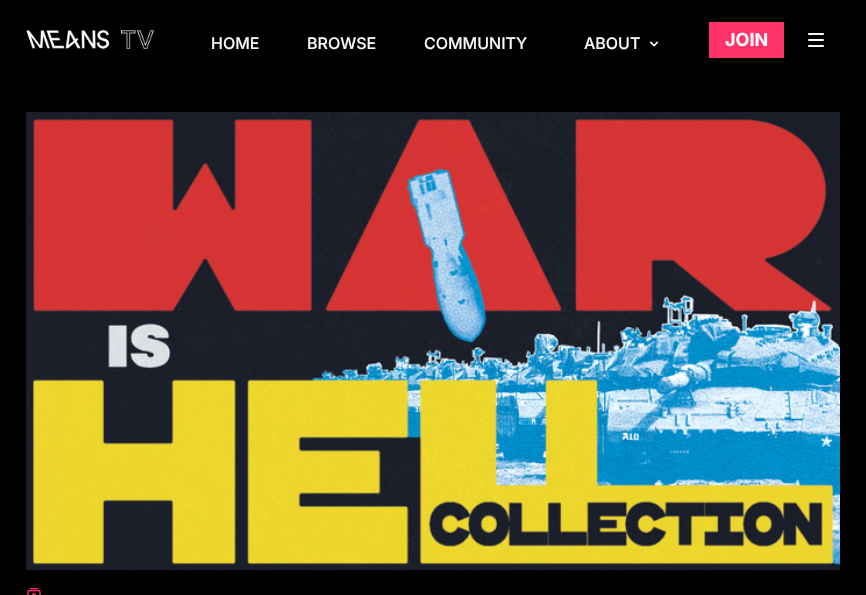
void draw(SkCanvas* c) {
SkPaint p;
p.setAntiAlias(true);
auto F=[&](const char* family, int weight, float size, bool italic = false){SkFontStyle style(weight, SkFontStyle::kNormal_Width,italic ? SkFontStyle::kItalic_Slant : SkFontStyle::kUpright_Slant);SkFont result(fontMgr->matchFamilyStyle(family, style), size);result.setSubpixel(true);return result;};
auto T=[&](const char* s, float x, float y, const SkFont& font){c->drawString(s, x, y, font, p);};
auto R=[&](float x, float y, float w, float h){c->drawRect(SkRect::MakeXYWH(x, y, w, h), p);};
auto I=[&](const char* path, float x, float y, float w, float h){auto image = SkImages::DeferredFromEncodedData(SkData::MakeFromFileName(path));c->drawImageRect(image, SkRect::MakeXYWH(x, y, w, h), SkSamplingOptions());};
c->clear(0xff000000);
I("1.png",26,30,128,19);
auto f1 = F("Inter",500,16);
p.setColor(0xfffafafa);
T("HOME",211,49,f1);
T("BROWSE",307,49,f1);
T("COMMUNITY",424,49,f1);
T("ABOUT",584,49,f1);
I("2.png",649,41,10,6);
p.setColor(0xffff3269);
R(709,22,75,36);
auto f2 = F("Inter",700,18);
p.setColor(0xfffafafa);
T("JOIN",725,46,f2);
I("3.png",808,33,16,14);
I("4.png",26,112,814,458);
I("5.png",27,588,14,7);
}
